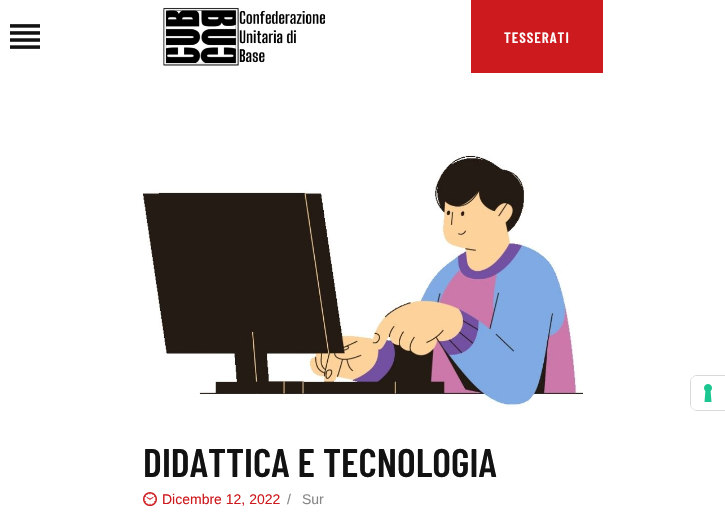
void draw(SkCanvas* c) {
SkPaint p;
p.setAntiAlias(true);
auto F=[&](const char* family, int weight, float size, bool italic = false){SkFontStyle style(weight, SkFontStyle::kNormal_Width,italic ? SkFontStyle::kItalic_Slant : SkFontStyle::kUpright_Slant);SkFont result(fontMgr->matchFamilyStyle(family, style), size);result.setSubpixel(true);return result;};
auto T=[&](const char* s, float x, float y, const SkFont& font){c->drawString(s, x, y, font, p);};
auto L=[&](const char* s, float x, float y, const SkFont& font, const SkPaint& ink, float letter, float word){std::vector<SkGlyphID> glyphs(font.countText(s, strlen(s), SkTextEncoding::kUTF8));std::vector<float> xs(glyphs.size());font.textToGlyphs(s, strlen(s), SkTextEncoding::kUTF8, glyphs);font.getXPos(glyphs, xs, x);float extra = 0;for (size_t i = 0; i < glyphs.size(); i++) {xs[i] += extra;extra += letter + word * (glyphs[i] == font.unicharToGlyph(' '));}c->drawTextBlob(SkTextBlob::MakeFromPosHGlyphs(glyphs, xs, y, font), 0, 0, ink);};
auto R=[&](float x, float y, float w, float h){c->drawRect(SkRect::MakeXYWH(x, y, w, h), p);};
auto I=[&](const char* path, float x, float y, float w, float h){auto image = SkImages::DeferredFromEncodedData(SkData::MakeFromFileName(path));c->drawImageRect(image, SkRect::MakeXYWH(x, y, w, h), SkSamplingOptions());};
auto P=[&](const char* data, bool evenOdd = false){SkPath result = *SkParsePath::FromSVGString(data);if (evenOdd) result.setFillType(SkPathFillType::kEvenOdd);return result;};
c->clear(0xffffffff);
I("1.png",10,24,30,25);
I("2.png",163,7,163,59);
p.setColor(0xffcd1a1e);
R(471,0,132,73);
auto f1 = F("Barlow Condensed",600,15);
p.setColor(0xffffffff);
L("TESSERATI",504,43,f1,p,1,0);
I("3.png",143,153,440,254);
auto f2 = F("Barlow Condensed",600,40);
p.setColor(0xff121212);
T("DIDATTICA E TECNOLOGIA",143,477,f2);
I("4.png",143,492,14,15);
auto f3 = F("Liberation Sans",400,14);
p.setColor(0xffcd1a1e);
T("Dicembre 12, 2022",162,504,f3);
p.setColor(0xff868686);
T("/",287,504,f3);
T("Sur",302,504,f3);
p.setStroke(true);
p.setStrokeWidth(1);
p.setColor(0xffd9d9d9);
c->drawPath(P("M697 375.5h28.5v35h-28.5c-3.5 0-6.5-3-6.5-6.5v-22c0-3.5 3-6.5 6.5-6.5z"),p);
p.setStroke(false);
p.setColor(0xffffffff);
c->drawPath(P("M697 376h28v34h-28c-3.5 0-6-2.5-6-6v-22c0-3.5 2.5-6 6-6z"),p);
I("5.png",704,384,8,18);
}
